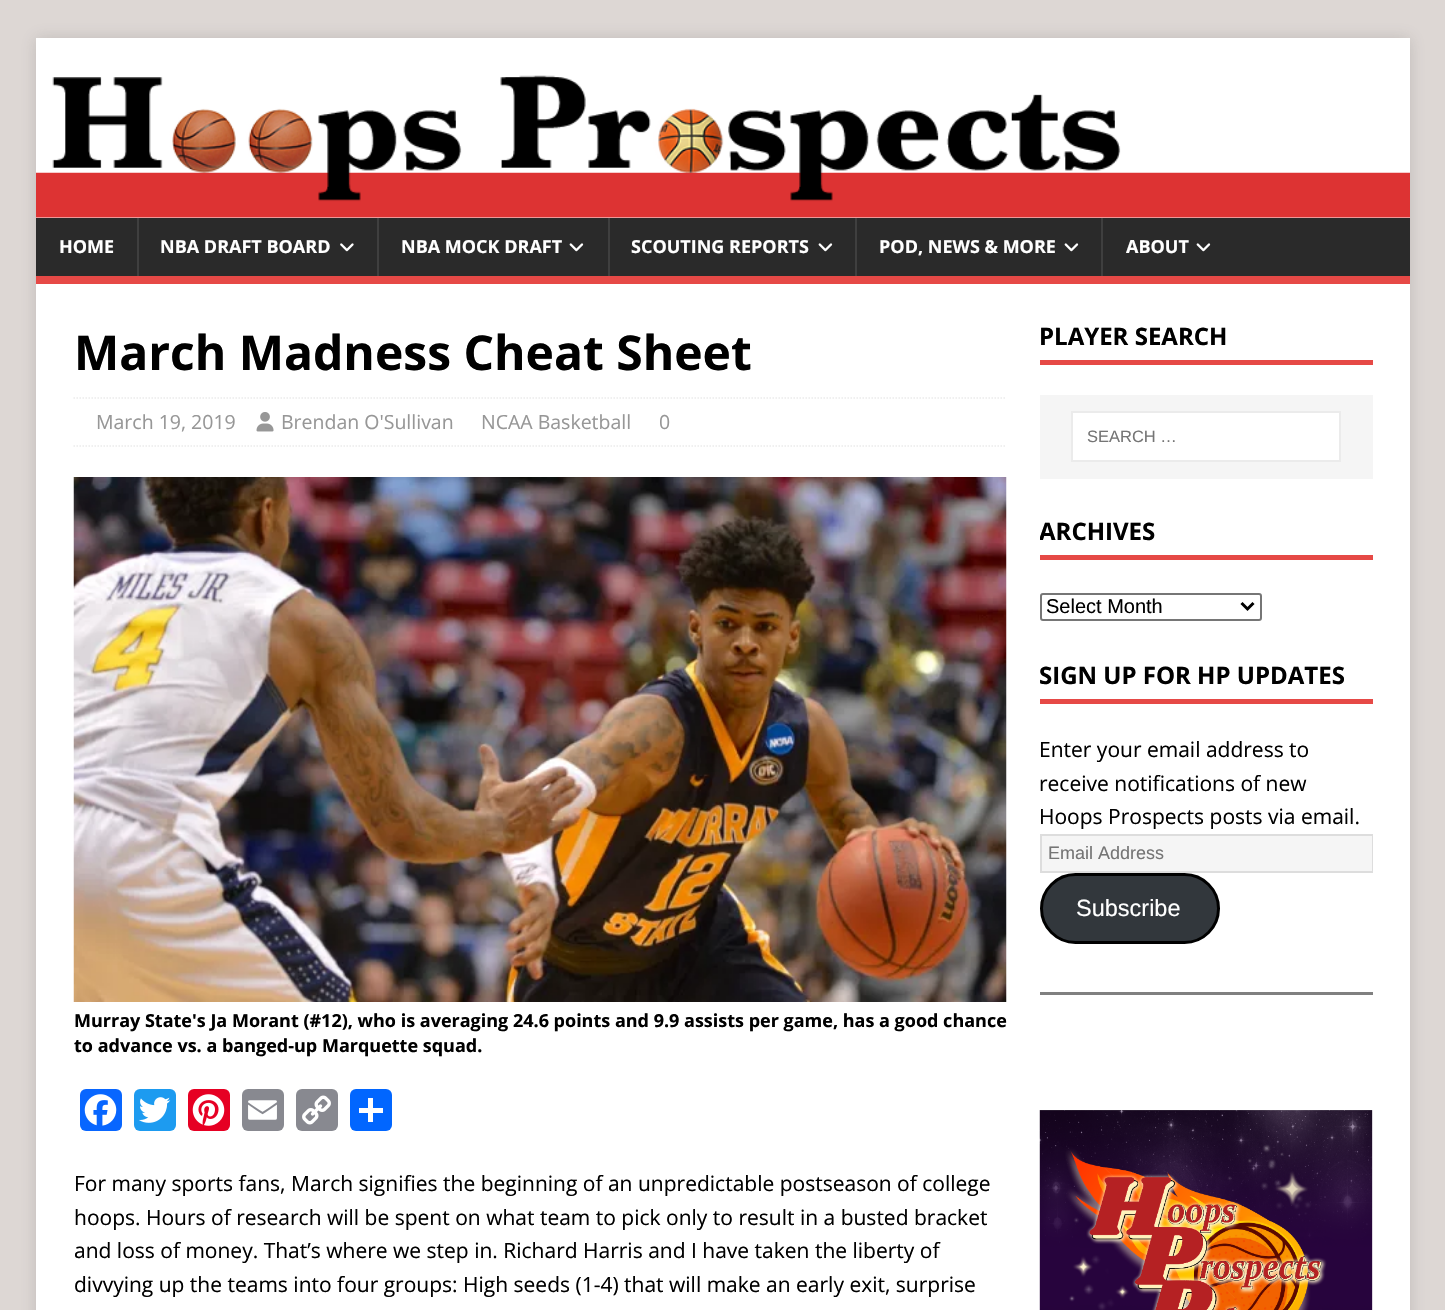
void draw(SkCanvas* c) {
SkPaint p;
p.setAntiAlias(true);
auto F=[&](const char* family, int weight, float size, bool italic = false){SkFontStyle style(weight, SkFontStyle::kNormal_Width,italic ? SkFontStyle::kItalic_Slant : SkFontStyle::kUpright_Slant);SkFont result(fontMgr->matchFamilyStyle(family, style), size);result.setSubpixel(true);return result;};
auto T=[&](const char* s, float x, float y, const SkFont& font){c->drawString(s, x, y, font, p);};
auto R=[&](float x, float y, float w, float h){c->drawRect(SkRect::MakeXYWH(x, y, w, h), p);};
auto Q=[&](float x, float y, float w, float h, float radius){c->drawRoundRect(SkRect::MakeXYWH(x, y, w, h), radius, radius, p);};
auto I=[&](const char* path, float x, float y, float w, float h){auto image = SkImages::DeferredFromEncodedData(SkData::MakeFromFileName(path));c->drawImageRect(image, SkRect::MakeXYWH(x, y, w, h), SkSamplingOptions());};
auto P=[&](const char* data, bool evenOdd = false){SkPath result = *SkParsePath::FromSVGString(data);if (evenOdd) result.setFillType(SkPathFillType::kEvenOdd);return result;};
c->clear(0xffddd7d4);
p.setColor(0x2b323232);
p.setMaskFilter(SkMaskFilter::MakeBlur(kNormal_SkBlurStyle, 7.5));
c->drawRect(SkRect::MakeXYWH(36,38,1374,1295),p);
p.setMaskFilter(nullptr);
p.setColor(0xffffffff);
R(36,38,1374,180);
I("1.png",36,75,1374,143);
p.setColor(0xff2a2a2a);
R(36,218,1374,58);
p.setColor(0xffe64946);
R(36,276,1374,8);
auto f1 = F("Open Sans",700,18);
p.setColor(0xffffffff);
T("HOME",59,253,f1);
p.setColor(0xff3f3f3f);
R(137,218,2,58);
p.setColor(0xffffffff);
T("NBA DRAFT BOARD",160,253,f1);
I("2.png",340,243,14,9);
p.setColor(0xff3f3f3f);
R(377,218,2,58);
p.setColor(0xffffffff);
T("NBA MOCK DRAFT",401,253,f1);
I("3.png",569,243,15,9);
p.setColor(0xff3f3f3f);
R(608,218,2,58);
p.setColor(0xffffffff);
T("SCOUTING REPORTS",631,253,f1);
I("3.png",818,243,15,9);
p.setColor(0xff3f3f3f);
R(855,218,2,58);
p.setColor(0xffffffff);
T("POD, NEWS & MORE",879,253,f1);
I("3.png",1064,243,15,9);
p.setColor(0xff3f3f3f);
R(1101,218,2,58);
p.setColor(0xffffffff);
T("ABOUT",1126,253,f1);
I("3.png",1196,243,15,9);
R(36,284,1374,1026);
auto f2 = F("Open Sans",700,48);
p.setColor(0xff000000);
T("March Madness Cheat Sheet",74,370,f2);
p.setStroke(true);
p.setStrokeWidth(1.5);
p.setColor(0xffebebeb);
p.setPathEffect(SkDashPathEffect::Make({{1.5f,1.5f}}, 0));
c->drawPath(P("M73.5 398h933"),p);
p.setPathEffect(nullptr);
p.setPathEffect(SkDashPathEffect::Make({{1.5f,1.5f}}, 0));
c->drawPath(P("M73.5 446h933"),p);
p.setPathEffect(nullptr);
auto f3 = F("Open Sans",400,19.5);
p.setStroke(false);
p.setColor(0xff979797);
T("March 19, 2019",96,429,f3);
I("4.png",256,412,18,20);
T("Brendan O'Sullivan",281,429,f3);
T("NCAA Basketball",481,429,f3);
T("0",659,429,f3);
I("5.png",73,477,934,525);
p.setColor(0xff000000);
T("Murray State's Ja Morant (#12), who is averaging 24.6 points and 9.9 assists per game, has a good chance",74,1027,f1);
T("to advance vs. a banged-up Marquette squad.",74,1052,f1);
p.setColor(0xff0866ff);
Q(80,1089,42,42,6);
I("6.png",84,1094,33,32);
p.setColor(0xff1d9bf0);
Q(134,1089,42,42,6);
I("7.png",139,1097,32,26);
p.setColor(0xffe60023);
Q(188,1089,42,42,6);
I("8.png",192,1094,33,32);
p.setColor(0xff888990);
Q(242,1089,42,42,6);
I("9.png",248,1100,29,20);
Q(296,1089,42,42,6);
I("10.png",302,1095,29,30);
p.setColor(0xff0166ff);
Q(350,1089,42,42,6);
p.setColor(0xffffffff);
R(368,1098,5,24);
R(359,1108,24,5);
auto f4 = F("Open Sans",400,21);
p.setColor(0xff000000);
T("For many sports fans, March signifies the beginning of an unpredictable postseason of college",74,1191,f4);
T("hoops. Hours of research will be spent on what team to pick only to result in a busted bracket",74,1225,f4);
T("and loss of money. That’s where we step in. Richard Harris and I have taken the liberty of",74,1258,f4);
T("divvying up the teams into four groups: High seeds (1-4) that will make an early exit, surprise",74,1292,f4);
p.setColor(0xffe64946);
R(1040,360,333,5);
auto f5 = F("Open Sans",700,24);
p.setColor(0xff000000);
T("PLAYER SEARCH",1039,345,f5);
p.setColor(0xfff5f5f5);
R(1040,395,333,84);
p.setColor(0xffffffff);
c->drawRect(SkRect::MakeXYWH(1072,412,268,49),p);
p.setStroke(true);
p.setStrokeWidth(2);
p.setColor(0xffebebeb);
c->drawRect(SkRect::MakeXYWH(1072,412,268,49),p);
auto f6 = F("Liberation Sans",400,16.5);
p.setStroke(false);
p.setColor(0xff757575);
T("SEARCH …",1087,442,f6);
p.setColor(0xffe64946);
R(1040,555,333,5);
c->save();
c->clipRect(SkRect::MakeXYWH(1040,516,333,107));
p.setColor(0xff000000);
T("ARCHIVES",1039,540,f5);
c->restore();
p.setStroke(true);
p.setColor(0xff767676);
c->drawRoundRect(SkRect::MakeXYWH(1041,594,220,26),2,2,p);
p.setStrokeWidth(3);
p.setColor(0xff000000);
c->drawPath(P("M1241.5 603l6 6l6-6"),p);
auto f7 = F("Liberation Sans",400,20);
p.setStroke(false);
T("Select Month",1046,613,f7);
p.setColor(0xffe64946);
R(1040,699,333,5);
p.setColor(0xff000000);
T("SIGN UP FOR HP UPDATES",1039,684,f5);
T("Enter your email address to",1039,757,f4);
T("receive notifications of new",1039,791,f4);
T("Hoops Prospects posts via email.",1039,824,f4);
p.setColor(0xfff5f5f5);
R(1042,836,330,35);
c->save();
c->clipRect(SkRect::MakeXYWH(1040,660,333,284));
p.setStroke(true);
p.setStrokeWidth(2);
p.setColor(0xffdddddd);
c->drawRect(SkRect::MakeXYWH(1041,835,332,37),p);
c->restore();
auto f8 = F("Liberation Sans",400,18);
p.setStroke(false);
p.setColor(0xff757575);
T("Email Address",1048,859,f8);
p.setColor(0xff32373c);
c->drawRoundRect(SkRect::MakeXYWH(1041.5,874.5,177,68),34,34,p);
p.setStroke(true);
p.setStrokeWidth(3);
p.setColor(0xff000000);
c->drawRoundRect(SkRect::MakeXYWH(1041.5,874.5,177,68),34,34,p);
auto f9 = F("Liberation Sans",400,23.5);
p.setStroke(false);
p.setColor(0xffffffff);
T("Subscribe",1076,916,f9);
p.setColor(0xff808080);
R(1040,992,333,3);
I("11.png",1039,1110,334,200);
}
